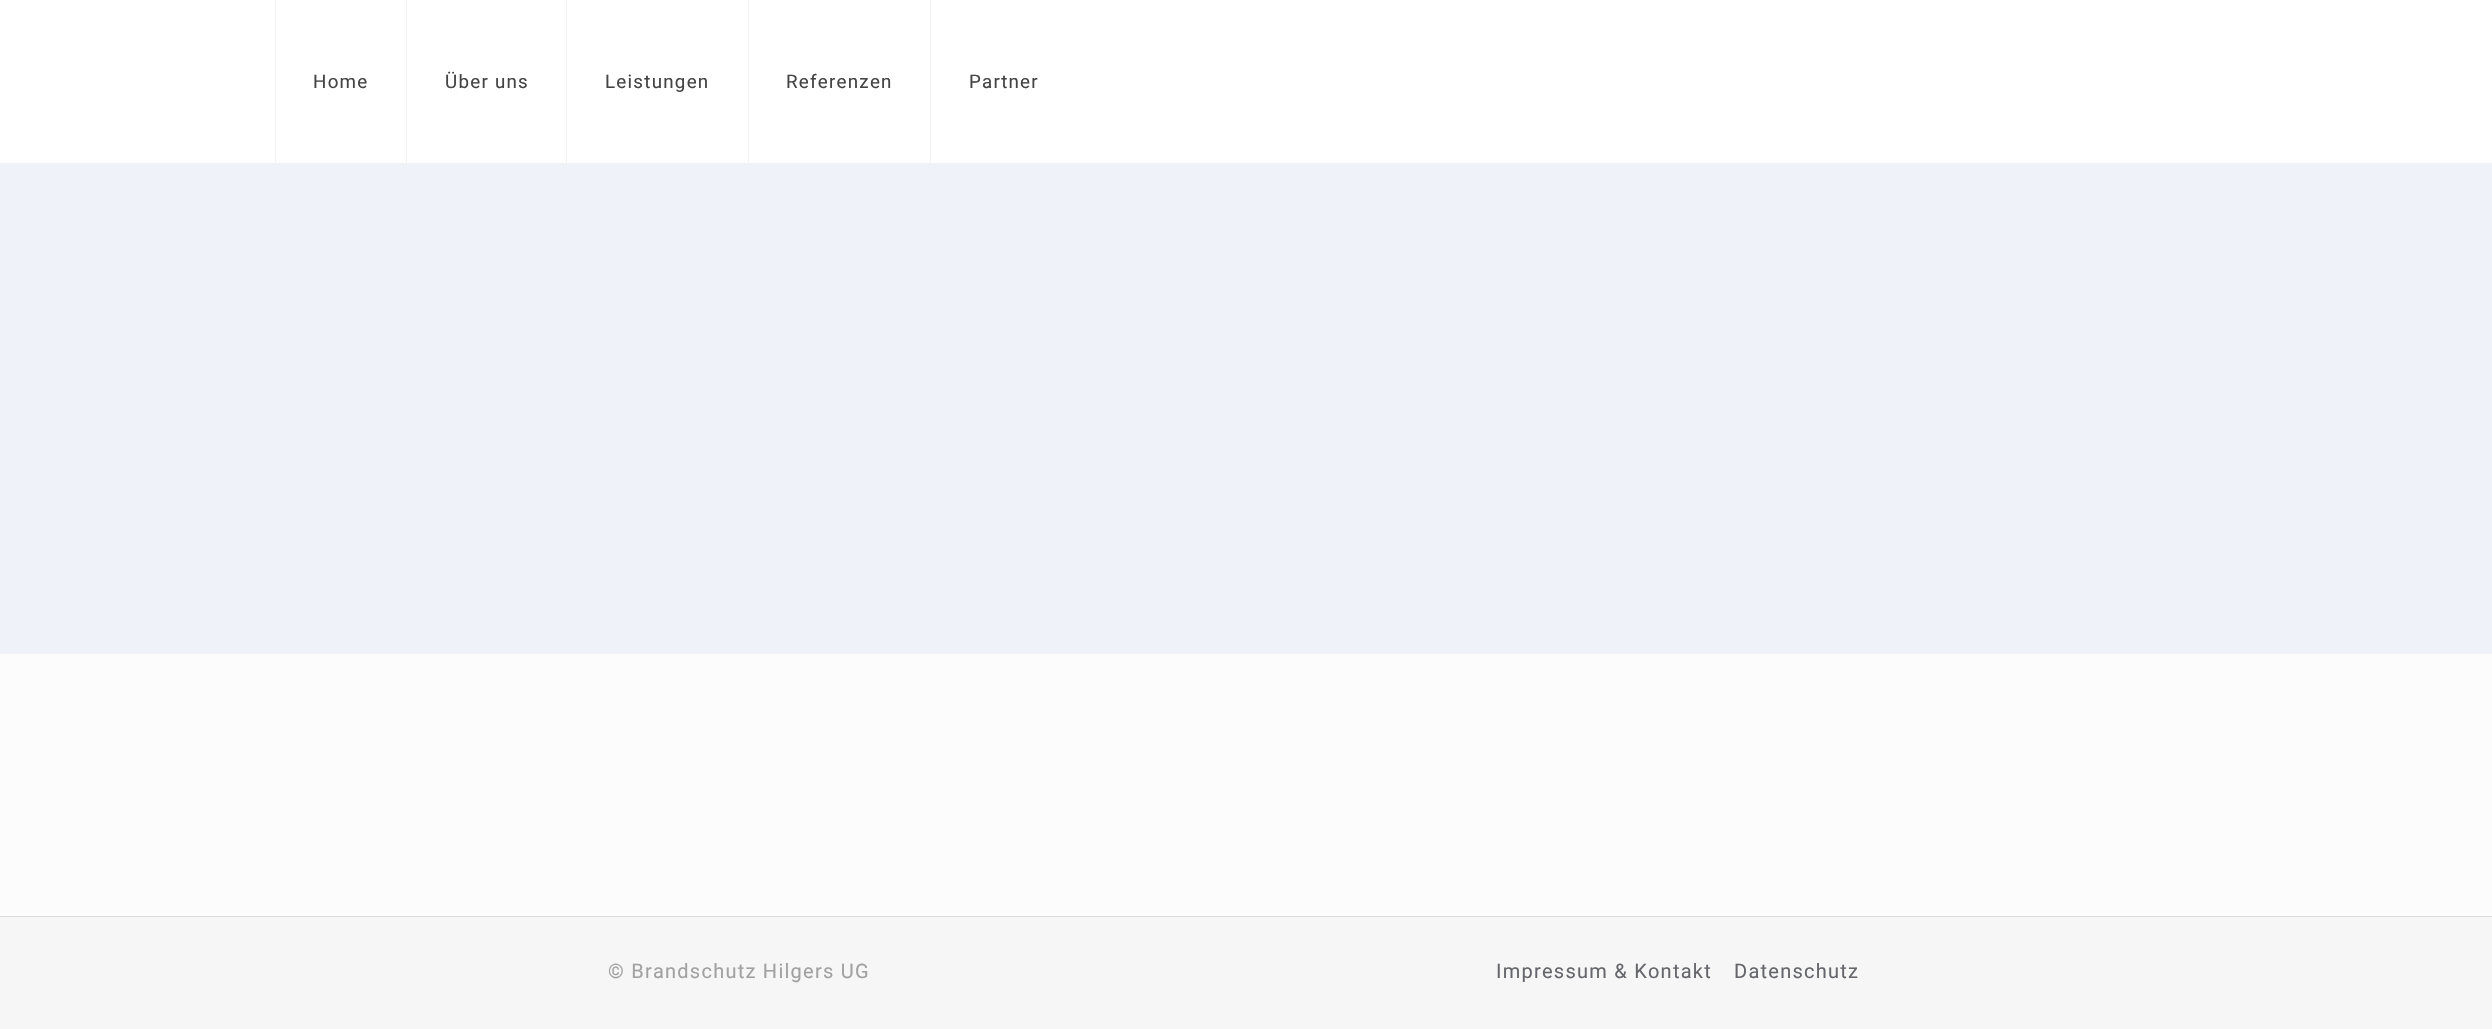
void draw(SkCanvas* c) {
SkPaint p;
p.setAntiAlias(true);
auto F=[&](const char* family, int weight, float size, bool italic = false){SkFontStyle style(weight, SkFontStyle::kNormal_Width,italic ? SkFontStyle::kItalic_Slant : SkFontStyle::kUpright_Slant);SkFont result(fontMgr->matchFamilyStyle(family, style), size);result.setSubpixel(true);return result;};
auto L=[&](const char* s, float x, float y, const SkFont& font, const SkPaint& ink, float letter, float word){std::vector<SkGlyphID> glyphs(font.countText(s, strlen(s), SkTextEncoding::kUTF8));std::vector<float> xs(glyphs.size());font.textToGlyphs(s, strlen(s), SkTextEncoding::kUTF8, glyphs);font.getXPos(glyphs, xs, x);float extra = 0;for (size_t i = 0; i < glyphs.size(); i++) {xs[i] += extra;extra += letter + word * (glyphs[i] == font.unicharToGlyph(' '));}c->drawTextBlob(SkTextBlob::MakeFromPosHGlyphs(glyphs, xs, y, font), 0, 0, ink);};
auto R=[&](float x, float y, float w, float h){c->drawRect(SkRect::MakeXYWH(x, y, w, h), p);};
c->clear(0xfffcfcfc);
p.setColor(0xffeff2f9);
R(0,164,2492,490);
p.setColor(0xffffffff);
R(0,0,2492,163);
p.setColor(0xfff2f2f2);
R(0,163,2492,1);
R(406,0,1,163);
R(275,0,1,163);
auto f1 = F("Roboto",400,18.75);
p.setColor(0xff444444);
L("Home",313,88,f1,p,1.25,0);
p.setColor(0xfff2f2f2);
R(566,0,1,163);
p.setColor(0xff444444);
L("Über uns",445,88,f1,p,1.25,0);
p.setColor(0xfff2f2f2);
R(748,0,1,163);
p.setColor(0xff444444);
L("Leistungen",605,88,f1,p,1.25,0);
p.setColor(0xfff2f2f2);
R(930,0,1,163);
p.setColor(0xff444444);
L("Referenzen",786,88,f1,p,1.25,0);
L("Partner",969,88,f1,p,1.25,0);
p.setColor(0xfff6f6f6);
R(0,917,2492,112);
p.setColor(0xffdddddd);
R(0,916,2492,1);
auto f2 = F("Roboto",400,20);
p.setColor(0xffa1a1a1);
L("© Brandschutz Hilgers UG",608,978,f2,p,1.25,0);
p.setColor(0xff65666c);
L("Impressum & Kontakt",1496,978,f2,p,1.25,0);
L("Datenschutz",1734,978,f2,p,1.25,0);
}
